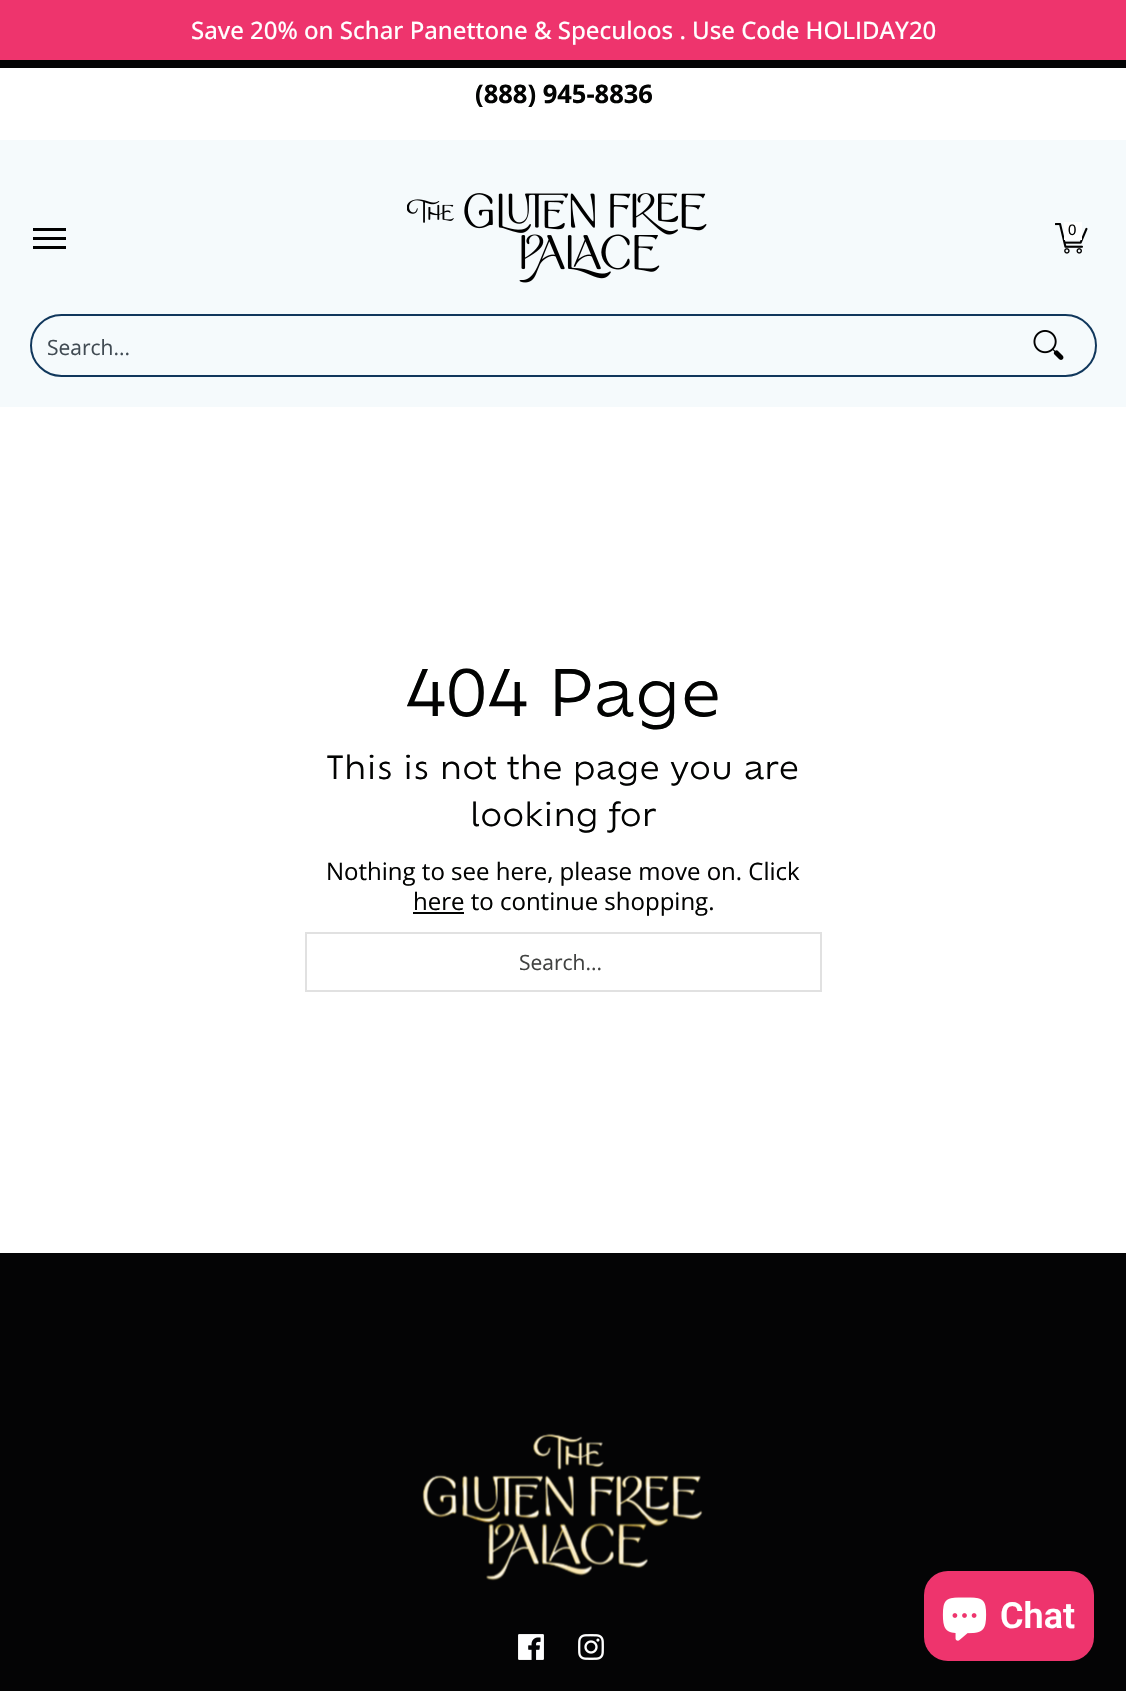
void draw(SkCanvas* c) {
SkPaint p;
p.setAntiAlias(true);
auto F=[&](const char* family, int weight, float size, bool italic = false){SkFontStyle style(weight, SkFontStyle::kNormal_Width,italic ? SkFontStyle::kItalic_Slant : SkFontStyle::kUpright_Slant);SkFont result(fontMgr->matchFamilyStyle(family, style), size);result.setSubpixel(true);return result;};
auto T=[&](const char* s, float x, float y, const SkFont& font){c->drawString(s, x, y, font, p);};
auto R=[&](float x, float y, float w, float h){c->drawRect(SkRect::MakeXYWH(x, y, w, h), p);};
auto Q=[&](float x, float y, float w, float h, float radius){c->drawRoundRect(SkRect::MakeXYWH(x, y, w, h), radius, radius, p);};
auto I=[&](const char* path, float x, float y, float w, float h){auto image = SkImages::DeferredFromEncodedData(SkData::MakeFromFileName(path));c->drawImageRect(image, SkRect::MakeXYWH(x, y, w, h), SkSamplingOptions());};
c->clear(0xffffffff);
p.setColor(0xffee346d);
R(0,0,1126,60);
auto f1 = F("Open Sans",500,24);
p.setColor(0xffffffff);
T("Save 20% on Schar Panettone & Speculoos . Use Code HOLIDAY20",191,39,f1);
p.setColor(0xff040405);
R(0,60,1126,8);
auto f2 = F("Open Sans",700,25.5);
p.setColor(0xff020302);
T("(888) 945-8836",475,103,f2);
p.setColor(0xfff5fafc);
R(0,140,1126,267);
p.setColor(0xff000000);
R(33,228,33,3);
R(33,246,33,3);
R(33,237,33,3);
I("1.png",407,193,300,90);
I("2.png",1055,223,33,31);
p.setColor(0xffffffff);
R(1064,222,18,18);
auto f3 = F("Liberation Sans",400,15);
p.setColor(0xff020302);
T("0",1068,235,f3);
p.setStroke(true);
p.setStrokeWidth(2);
p.setColor(0xff10375c);
c->drawRoundRect(SkRect::MakeXYWH(31,315,1065,61),30.5,30.5,p);
auto f4 = F("Open Sans",400,21);
p.setStroke(false);
p.setColor(0xff414b53);
T("Search...",47,355,f4);
I("3.png",1033,330,31,30);
auto f5 = F("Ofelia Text",400,62.5);
p.setColor(0xff020302);
T("404 Page",405,716,f5);
auto f6 = F("Ofelia Text",400,31.25);
T("This is not the page you are",326,779,f6);
T("looking for",470,826,f6);
auto f7 = F("Open Sans",400,24);
T("Nothing to see here, please move on. Click",326,880,f7);
R(413,912,51,2);
T("here to continue shopping.",413,910,f7);
p.setStroke(true);
p.setColor(0xffe1e1e1);
c->drawRect(SkRect::MakeXYWH(306,933,515,58),p);
p.setStroke(false);
p.setColor(0xff414241);
T("Search...",519,970,f4);
p.setColor(0xff040405);
R(0,1253,1126,438);
I("4.png",422,1433,281,148);
I("5.png",518,1634,26,26);
I("6.png",578,1634,26,26);
p.setColor(0xffee346d);
Q(924,1571,170,90,24);
I("7.png",942,1597,45,44);
auto f8 = F("Roboto",600,36);
p.setColor(0xffffffff);
T("Chat",1000,1628,f8);
}
